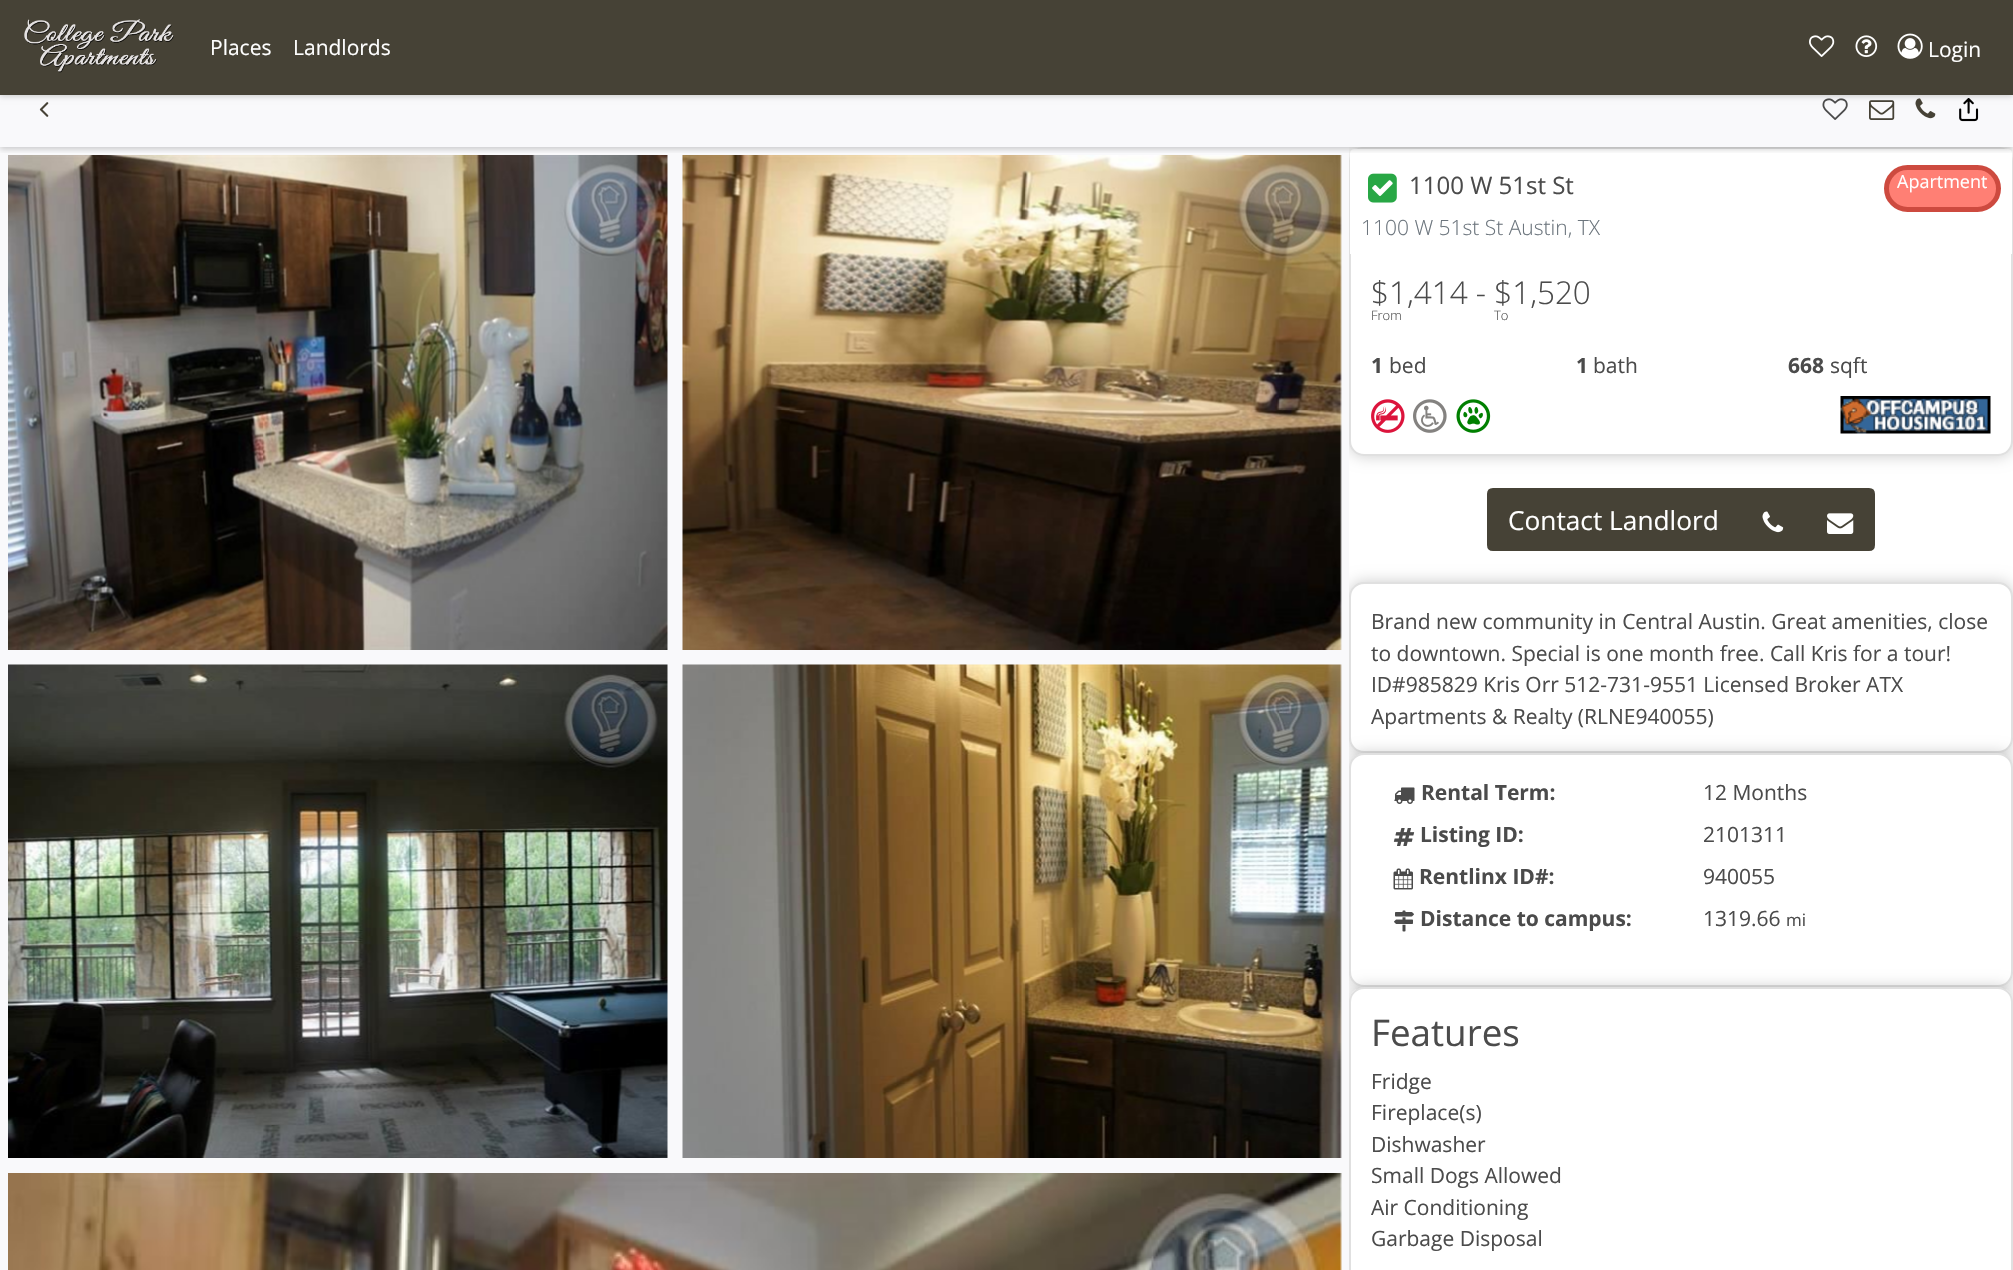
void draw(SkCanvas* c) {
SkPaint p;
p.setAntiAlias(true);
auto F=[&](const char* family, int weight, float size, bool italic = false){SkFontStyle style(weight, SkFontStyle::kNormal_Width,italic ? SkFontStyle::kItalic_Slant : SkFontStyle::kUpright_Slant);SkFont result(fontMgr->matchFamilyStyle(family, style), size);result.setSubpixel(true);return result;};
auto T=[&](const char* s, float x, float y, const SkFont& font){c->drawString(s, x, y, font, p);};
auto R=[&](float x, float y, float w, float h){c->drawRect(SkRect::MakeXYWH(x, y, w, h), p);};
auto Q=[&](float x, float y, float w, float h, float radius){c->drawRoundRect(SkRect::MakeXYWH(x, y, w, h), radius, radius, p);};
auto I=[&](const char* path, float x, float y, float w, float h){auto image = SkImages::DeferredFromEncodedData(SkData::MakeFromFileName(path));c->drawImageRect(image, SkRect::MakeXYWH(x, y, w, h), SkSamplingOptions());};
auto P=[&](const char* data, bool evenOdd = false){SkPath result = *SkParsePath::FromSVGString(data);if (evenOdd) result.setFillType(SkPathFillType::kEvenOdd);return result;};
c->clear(0xfff9f9fb);
p.setColor(0xffffffff);
R(1349,147,664,855);
I("10.png",8,155,660,495);
I("11.png",682,155,660,495);
c->save();
c->clipRect(SkRect::MakeXYWH(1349,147,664,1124));
p.setColor(0x33000000);
p.setMaskFilter(SkMaskFilter::MakeBlur(kNormal_SkBlurStyle, 7.5));
c->drawRoundRect(SkRect::MakeXYWH(1349,147,664,309),15,15,p);
p.setMaskFilter(nullptr);
c->restore();
p.setColor(0xffffffff);
Q(1349,147,664,309,15);
p.setStroke(true);
p.setStrokeWidth(2);
p.setColor(0x1f000000);
c->drawRoundRect(SkRect::MakeXYWH(1350,148,662,307),14,14,p);
p.setStroke(false);
p.setColor(0xffffffff);
c->drawPath(P("M1354 149h654c2 0 4 2 4 4v101h-662v-101c0-2 2-4 4-4z"),p);
c->save();
c->clipRect(SkRect::MakeXYWH(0,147,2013,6));
p.setColor(0x33000000);
p.setMaskFilter(SkMaskFilter::MakeBlur(kNormal_SkBlurStyle, 3));
c->drawRect(SkRect::MakeXYWH(0,75,2013,74),p);
p.setMaskFilter(nullptr);
c->restore();
I("5.png",39,102,10,15);
I("6.png",1822,98,26,22);
I("7.png",1869,100,26,20);
I("8.png",1915,98,21,21);
I("9.png",1959,98,20,24);
p.setMaskFilter(SkMaskFilter::MakeBlur(kNormal_SkBlurStyle, 3));
c->drawRect(SkRect::MakeXYWH(0,2,2013,94),p);
p.setMaskFilter(nullptr);
p.setColor(0xff464236);
R(0,0,2013,95);
I("1.png",24,19,150,54);
auto f1 = F("Open Sans",400,21);
p.setColor(0xffffffff);
T("Places",210,55,f1);
T("Landlords",293,55,f1);
I("2.png",1809,35,26,22);
I("3.png",1855,35,23,22);
I("4.png",1897,33,26,26);
T("Login",1928,57,f1);
I("12.png",8,664,660,494);
I("13.png",682,664,660,494);
I("14.png",8,1173,1334,97);
I("15.png",1368,173,29,30);
auto f2 = F("Open Sans",400,24);
p.setColor(0xff4b4b4b);
T("1100 W 51st St",1409,194,f2);
p.setColor(0xffff7f74);
c->drawRoundRect(SkRect::MakeXYWH(1886.5,167.5,112,42),21,21,p);
p.setStroke(true);
p.setStrokeWidth(5);
p.setColor(0xffcd4a3f);
c->drawRoundRect(SkRect::MakeXYWH(1886.5,167.5,112,42),21,21,p);
auto f3 = F("Open Sans",400,18);
p.setStroke(false);
p.setColor(0xffffffff);
T("Apartment",1897,188,f3);
auto f4 = F("Open Sans",300,21);
p.setColor(0xff6c757d);
T("1100 W 51st St Austin, TX",1361,235,f4);
auto f5 = F("Open Sans",300,31.5);
p.setColor(0xff4b4b4b);
T("$1,414 - $1,520",1371,304,f5);
auto f6 = F("Open Sans",300,13);
T("From",1371,320,f6);
T("To",1494,320,f6);
auto f7 = F("Open Sans",700,21);
T("1",1371,373,f7);
T("bed",1389,373,f1);
T("1",1576,373,f7);
T("bath",1593,373,f1);
T("668",1788,373,f7);
T("sqft",1830,373,f1);
I("16.png",1371,399,34,34);
I("17.png",1413,399,34,34);
I("18.png",1456,399,35,34);
I("19.png",1840,396,151,38);
p.setColor(0xff464236);
c->drawPath(P("M1493 489h248v61h-248c-3 0-5-2-5-5v-51c0-3 2-5 5-5z"),p);
p.setStroke(true);
p.setStrokeWidth(2);
c->drawPath(P("M1493 489h248v61h-248c-3 0-5-2-5-5v-51c0-3 2-5 5-5z"),p);
auto f8 = F("Open Sans",400,26.25);
p.setStroke(false);
p.setColor(0xffffffff);
T("Contact Landlord",1508,530,f8);
p.setColor(0xff464236);
R(1742,488,63,63);
I("20.png",1762,511,22,22);
c->drawPath(P("M1806 489h63c3 0 5 2 5 5v51c0 3-2 5-5 5h-63z"),p);
p.setStroke(true);
c->drawPath(P("M1806 489h63c3 0 5 2 5 5v51c0 3-2 5-5 5h-63z"),p);
I("21.png",1827,513,27,21);
c->save();
c->clipRect(SkRect::MakeXYWH(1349,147,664,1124));
p.setStroke(false);
p.setColor(0x33000000);
p.setMaskFilter(SkMaskFilter::MakeBlur(kNormal_SkBlurStyle, 7.5));
c->drawRoundRect(SkRect::MakeXYWH(1349,582,664,171),15,15,p);
p.setMaskFilter(nullptr);
c->restore();
p.setColor(0xffffffff);
Q(1349,582,664,171,15);
p.setStroke(true);
p.setColor(0x1f000000);
c->drawRoundRect(SkRect::MakeXYWH(1350,583,662,169),14,14,p);
p.setStroke(false);
p.setColor(0xff4b4b4b);
T("Brand new community in Central Austin. Great amenities, close",1371,629,f1);
T("to downtown. Special is one month free. Call Kris for a tour!",1371,661,f1);
T("ID#985829 Kris Orr 512-731-9551 Licensed Broker ATX",1371,692,f1);
T("Apartments & Realty (RLNE940055)",1371,724,f1);
c->save();
c->clipRect(SkRect::MakeXYWH(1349,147,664,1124));
p.setColor(0x33000000);
p.setMaskFilter(SkMaskFilter::MakeBlur(kNormal_SkBlurStyle, 7.5));
c->drawRoundRect(SkRect::MakeXYWH(1349,753,664,234),15,15,p);
p.setMaskFilter(nullptr);
c->restore();
p.setColor(0xffffffff);
Q(1349,753,664,234,15);
p.setStroke(true);
p.setColor(0x1f000000);
c->drawRoundRect(SkRect::MakeXYWH(1350,754,662,232),14,14,p);
I("22.png",1394,787,21,17);
p.setStroke(false);
p.setColor(0xff4b4b4b);
T("Rental Term:",1421,800,f7);
T("12 Months",1703,800,f1);
I("23.png",1393,828,22,18);
T("Listing ID:",1420,842,f7);
T("2101311",1703,842,f1);
I("24.png",1393,868,20,22);
T("Rentlinx ID#:",1419,884,f7);
T("940055",1703,884,f1);
I("25.png",1394,910,20,22);
T("Distance to campus:",1420,926,f7);
T("1319.66",1703,926,f1);
auto f9 = F("Open Sans",400,17);
T("mi",1786,926,f9);
c->save();
c->clipRect(SkRect::MakeXYWH(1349,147,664,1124));
p.setColor(0x33000000);
p.setMaskFilter(SkMaskFilter::MakeBlur(kNormal_SkBlurStyle, 7.5));
c->drawRoundRect(SkRect::MakeXYWH(1349,987,664,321),15,15,p);
p.setMaskFilter(nullptr);
c->restore();
p.setColor(0xffffffff);
c->drawPath(P("M1364 987h634c8.5 0 15 6.5 15 15v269h-664v-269c0-8.5 6.5-15 15-15z"),p);
p.setStroke(true);
p.setColor(0x1f000000);
c->drawRoundRect(SkRect::MakeXYWH(1350,988,662,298),14,14,p);
auto f10 = F("Open Sans",400,36.75);
p.setStroke(false);
p.setColor(0xff4b4b4b);
T("Features",1371,1046,f10);
T("Fridge",1371,1089,f1);
T("Fireplace(s)",1371,1120,f1);
T("Dishwasher",1371,1152,f1);
T("Small Dogs Allowed",1371,1183,f1);
T("Air Conditioning",1371,1215,f1);
T("Garbage Disposal",1371,1246,f1);
}
